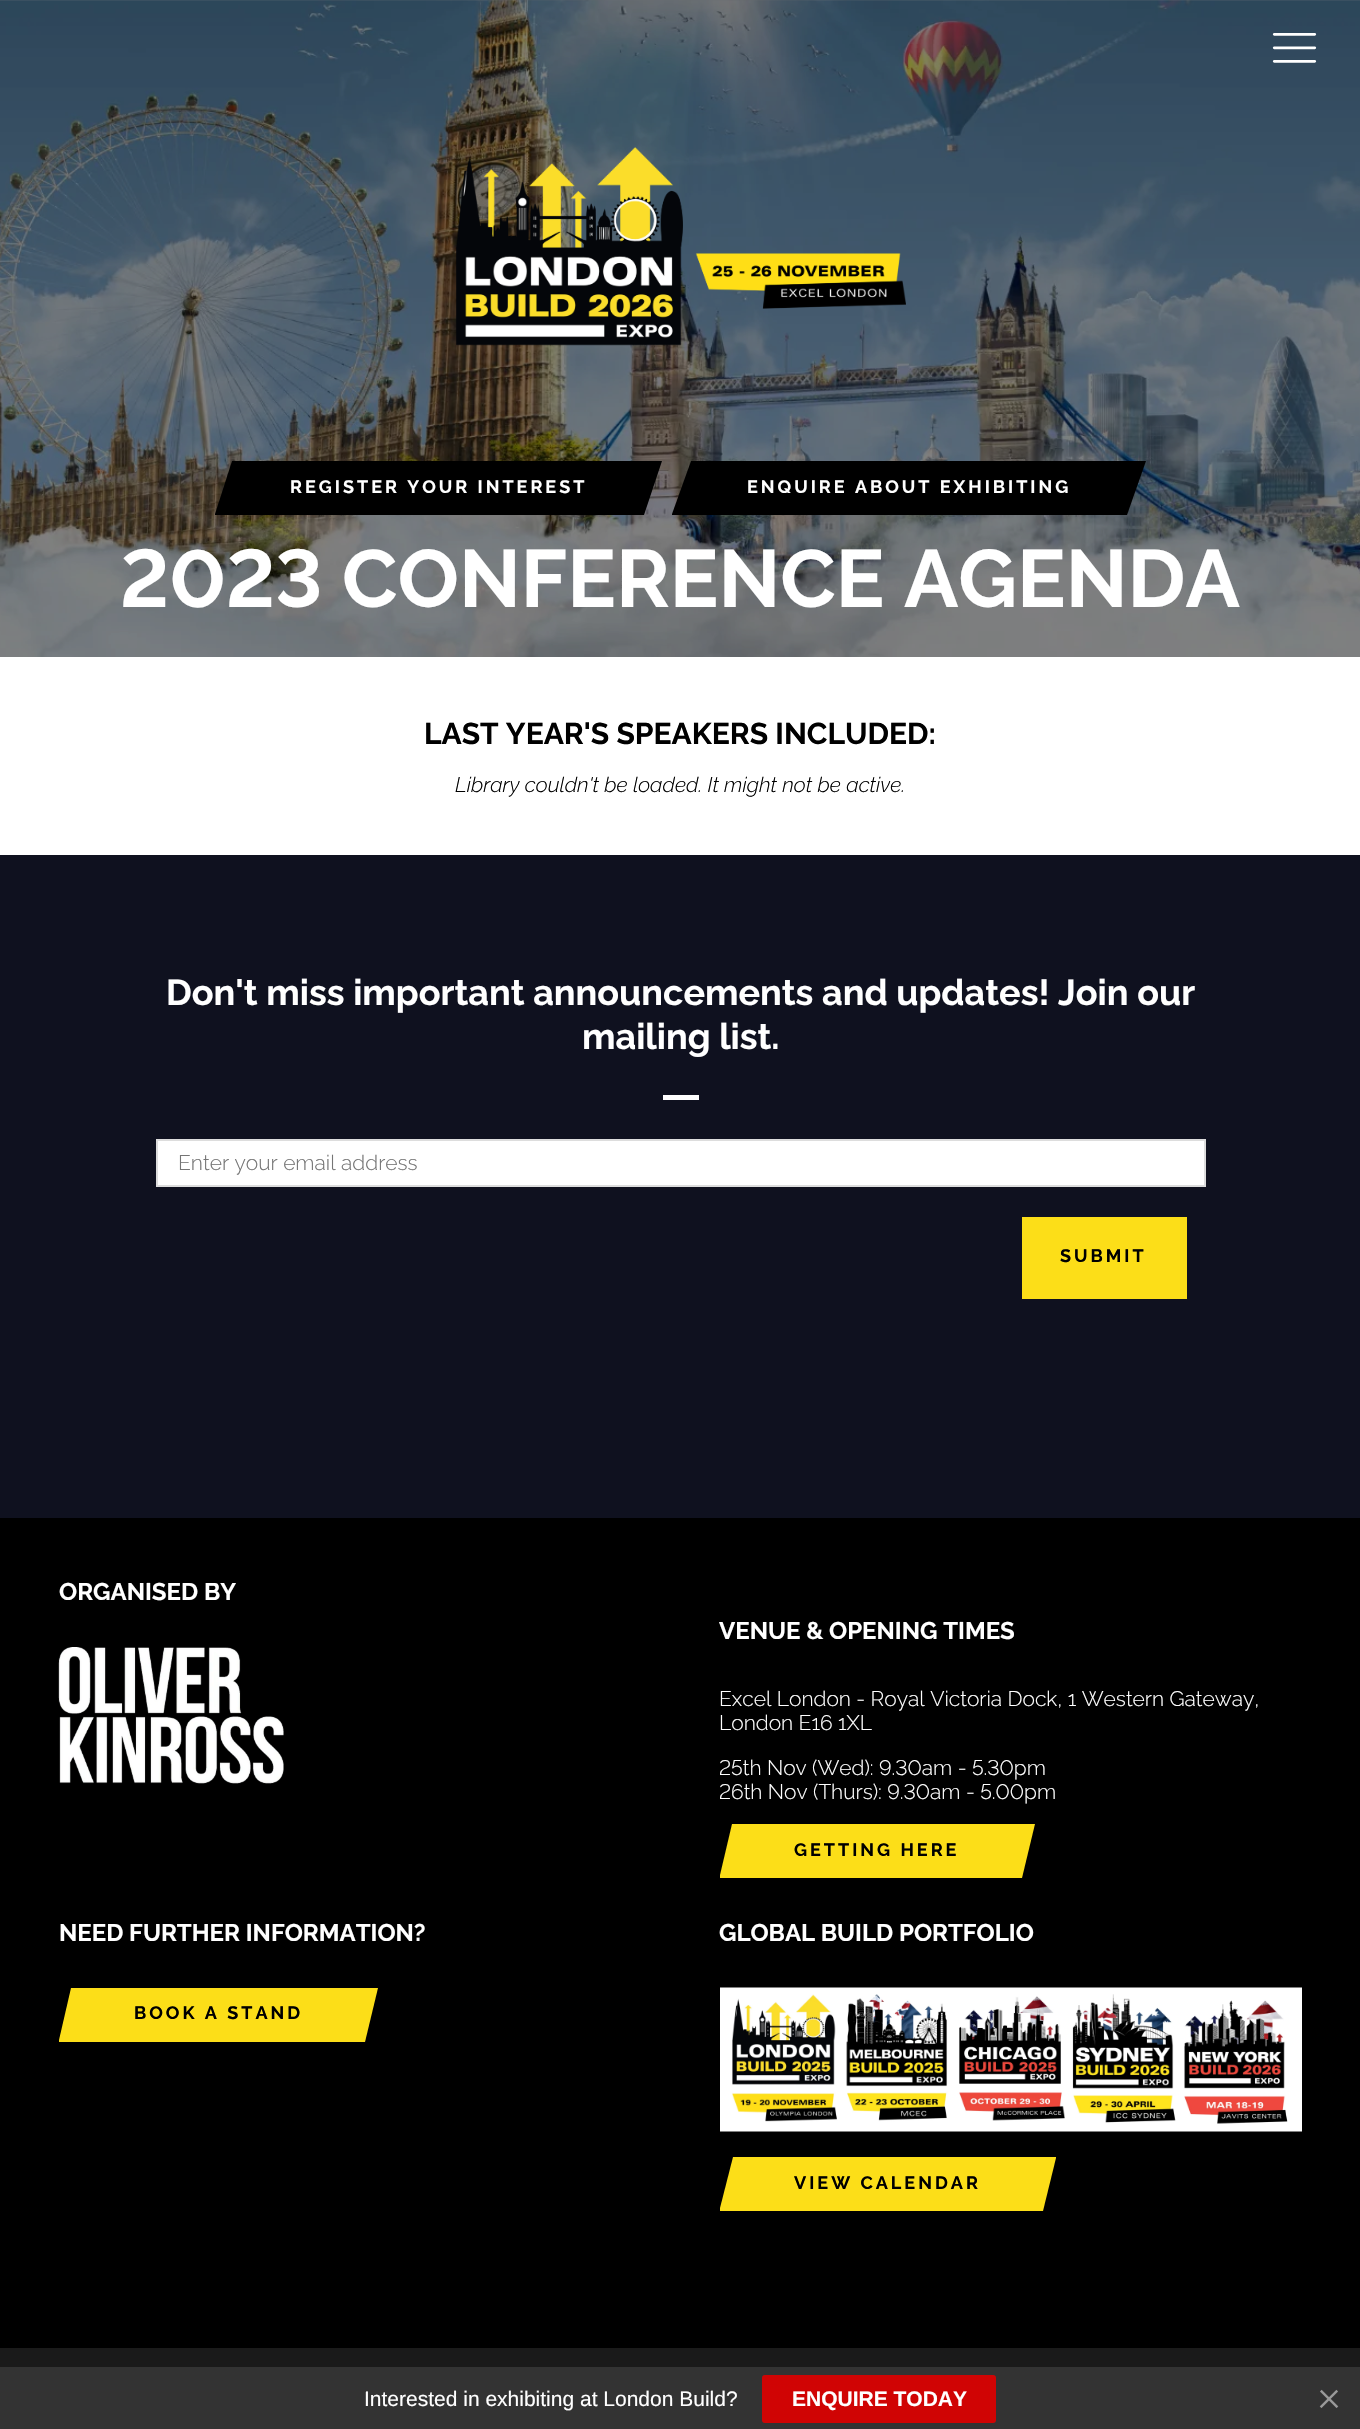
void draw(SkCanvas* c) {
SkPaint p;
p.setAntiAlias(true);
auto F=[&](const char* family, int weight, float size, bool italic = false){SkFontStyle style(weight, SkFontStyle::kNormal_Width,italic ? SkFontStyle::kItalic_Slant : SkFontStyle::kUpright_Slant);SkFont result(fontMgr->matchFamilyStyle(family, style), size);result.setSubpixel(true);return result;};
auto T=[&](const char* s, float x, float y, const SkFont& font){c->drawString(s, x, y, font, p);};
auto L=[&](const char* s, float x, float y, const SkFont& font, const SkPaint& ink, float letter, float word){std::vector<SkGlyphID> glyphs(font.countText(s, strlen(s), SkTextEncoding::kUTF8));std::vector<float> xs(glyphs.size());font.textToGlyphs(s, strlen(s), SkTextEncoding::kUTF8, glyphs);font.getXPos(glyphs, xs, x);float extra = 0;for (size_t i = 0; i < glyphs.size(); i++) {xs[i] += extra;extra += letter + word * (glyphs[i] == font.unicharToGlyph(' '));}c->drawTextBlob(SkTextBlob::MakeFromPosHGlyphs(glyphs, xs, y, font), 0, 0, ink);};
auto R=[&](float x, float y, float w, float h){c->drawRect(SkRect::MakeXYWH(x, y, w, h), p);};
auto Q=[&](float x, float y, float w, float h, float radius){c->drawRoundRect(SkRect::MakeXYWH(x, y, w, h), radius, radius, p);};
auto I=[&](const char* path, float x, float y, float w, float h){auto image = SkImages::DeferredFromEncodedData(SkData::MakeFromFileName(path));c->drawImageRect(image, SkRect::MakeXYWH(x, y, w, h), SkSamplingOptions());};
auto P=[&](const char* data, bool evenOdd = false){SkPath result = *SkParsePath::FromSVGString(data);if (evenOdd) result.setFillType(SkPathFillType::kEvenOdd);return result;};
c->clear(0xffffffff);
I("2.png",0,0,1360,657);
I("1.png",1272,33,45,30);
I("3.png",456,147,450,199);
p.setColor(0xff000000);
c->drawPath(P("M232 461h430l-18 54h-429v-1z"),p);
auto f1 = F("Raleway",700,18);
p.setColor(0xffffffff);
L("REGISTER YOUR INTEREST",290,493,f1,p,3,0);
p.setColor(0xff000000);
c->drawPath(P("M691 461h455l-19 54h-455v-1z"),p);
p.setColor(0xffffffff);
L("ENQUIRE ABOUT EXHIBITING",747,493,f1,p,3,0);
auto f2 = F("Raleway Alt",700,81);
T("2023 CONFERENCE AGENDA",120,607,f2);
auto f3 = F("Raleway",700,30);
p.setColor(0xff000000);
T("LAST YEAR'S SPEAKERS INCLUDED:",424,744,f3);
auto f4 = F("Raleway",300,21,true);
T("Library couldn't be loaded. It might not be active.",455,792,f4);
p.setColor(0xff0f111f);
R(0,855,1360,663);
auto f5 = F("Raleway",700,36);
p.setColor(0xffffffff);
T("Don't miss important announcements and updates! Join our",166,1005,f5);
T("mailing list.",582,1049,f5);
R(663,1095,36,5);
c->drawRect(SkRect::MakeXYWH(157,1140,1048,46),p);
p.setStroke(true);
p.setStrokeWidth(2);
p.setColor(0xffdddddd);
c->drawRect(SkRect::MakeXYWH(157,1140,1048,46),p);
auto f6 = F("Raleway",300,21);
p.setStroke(false);
p.setColor(0xff757575);
T("Enter your email address",178,1170,f6);
p.setColor(0xfffcde18);
R(1022,1217,165,82);
p.setColor(0xff000000);
L("SUBMIT",1060,1262,f1,p,3,0);
R(0,1518,1360,830);
auto f7 = F("Raleway",700,24);
p.setColor(0xffffffff);
T("ORGANISED BY",59,1600,f7);
I("4.png",58,1647,226,137);
T("VENUE & OPENING TIMES",719,1639,f7);
T("Excel London - Royal Victoria Dock, 1 Western Gateway,",719,1706,f6);
T("London E16 1XL",719,1730,f6);
auto f8 = F("Raleway Alt",300,21);
T("25th Nov (Wed): 9.30am - 5.30pm",719,1775,f8);
T("26th Nov (Thurs): 9.30am - 5.00pm",719,1799,f8);
p.setColor(0xfffcde18);
c->drawPath(P("M732 1824h303l-13 54h-302v-3z"),p);
p.setColor(0xff000000);
L("GETTING HERE",794,1856,f1,p,3,0);
p.setColor(0xffffffff);
T("NEED FURTHER INFORMATION?",59,1941,f7);
p.setColor(0xfffcde18);
c->drawPath(P("M59 2040l12-52h307l-13 54h-306z"),p);
p.setColor(0xff000000);
L("BOOK A STAND",134,2019,f1,p,3,0);
p.setColor(0xffffffff);
T("GLOBAL BUILD PORTFOLIO",719,1941,f7);
I("5.png",720,1987,582,145);
p.setColor(0xfffcde18);
c->drawPath(P("M733 2157h323v1l-13 53h-323v-3z"),p);
p.setColor(0xff000000);
L("VIEW CALENDAR",794,2189,f1,p,3,0);
p.setColor(0xff1a1a1a);
R(0,2348,1360,19);
p.setColor(0xff333333);
R(0,2367,1360,62);
auto f9 = F("Liberation Sans",400,21);
p.setColor(0xffffffff);
T("Interested in exhibiting at London Build?",364,2406,f9);
p.setColor(0xffd00404);
Q(762,2375,234,48,3);
auto f10 = F("Liberation Sans",700,21);
p.setColor(0xffffffff);
T("ENQUIRE TODAY",792,2406,f10);
I("6.png",1319,2389,20,19);
}
